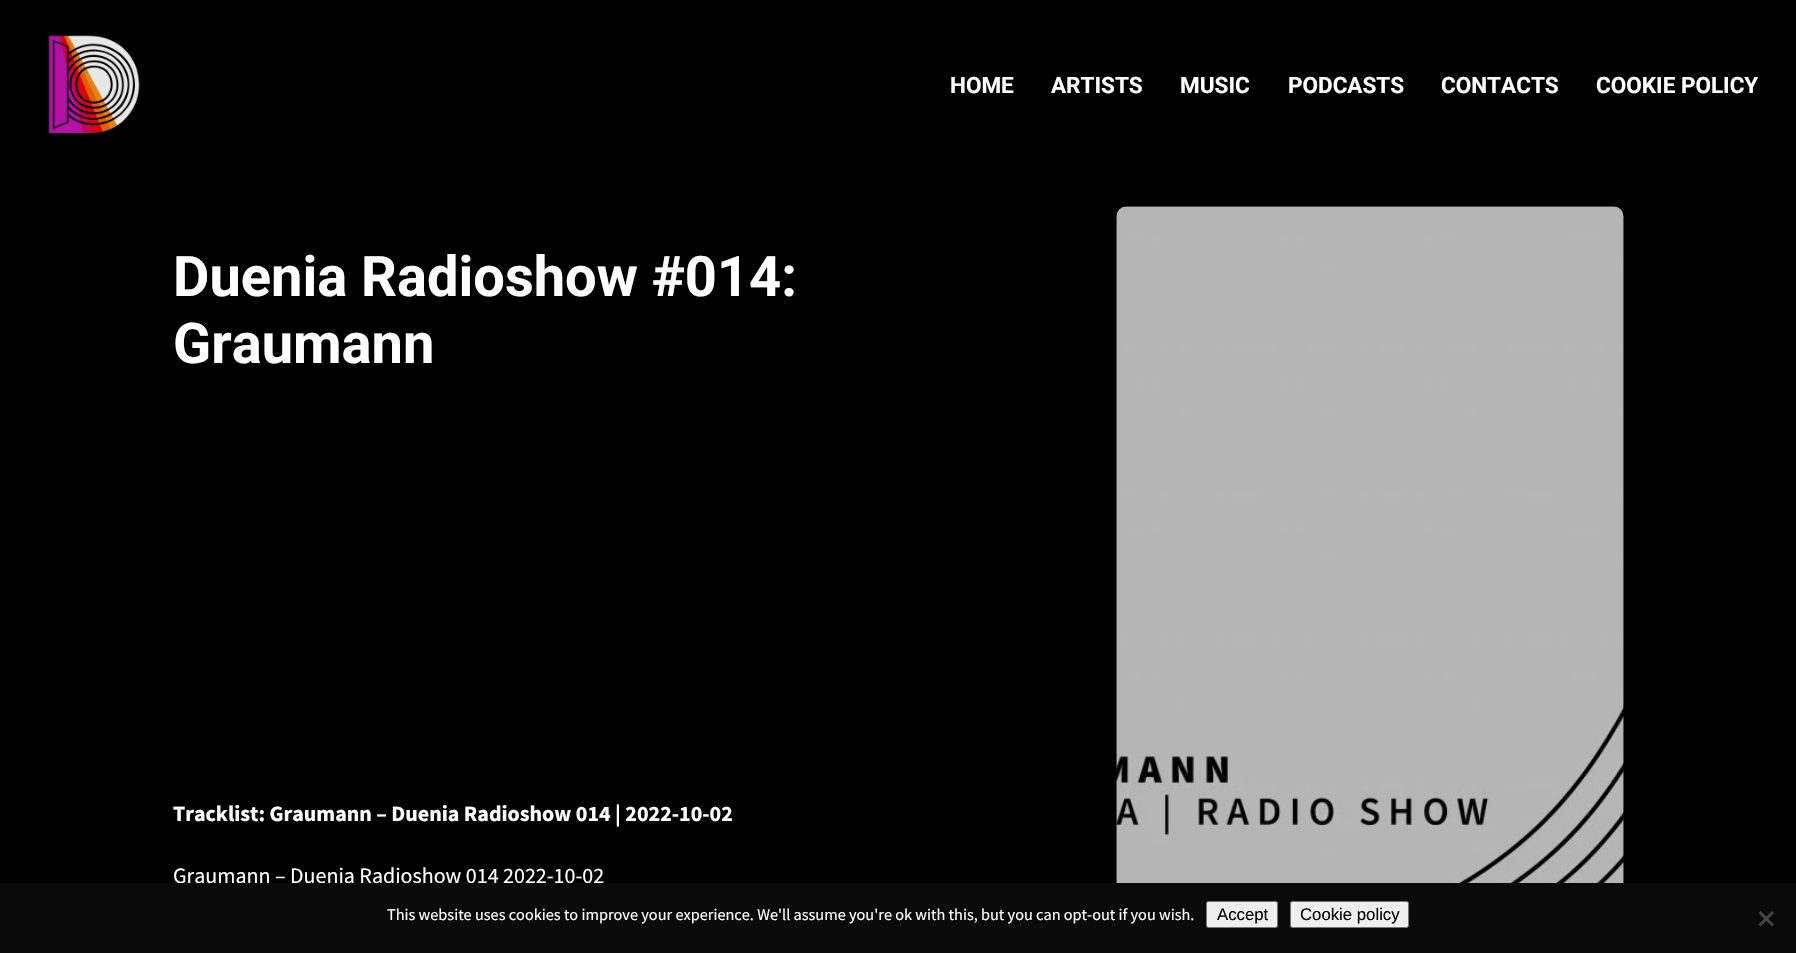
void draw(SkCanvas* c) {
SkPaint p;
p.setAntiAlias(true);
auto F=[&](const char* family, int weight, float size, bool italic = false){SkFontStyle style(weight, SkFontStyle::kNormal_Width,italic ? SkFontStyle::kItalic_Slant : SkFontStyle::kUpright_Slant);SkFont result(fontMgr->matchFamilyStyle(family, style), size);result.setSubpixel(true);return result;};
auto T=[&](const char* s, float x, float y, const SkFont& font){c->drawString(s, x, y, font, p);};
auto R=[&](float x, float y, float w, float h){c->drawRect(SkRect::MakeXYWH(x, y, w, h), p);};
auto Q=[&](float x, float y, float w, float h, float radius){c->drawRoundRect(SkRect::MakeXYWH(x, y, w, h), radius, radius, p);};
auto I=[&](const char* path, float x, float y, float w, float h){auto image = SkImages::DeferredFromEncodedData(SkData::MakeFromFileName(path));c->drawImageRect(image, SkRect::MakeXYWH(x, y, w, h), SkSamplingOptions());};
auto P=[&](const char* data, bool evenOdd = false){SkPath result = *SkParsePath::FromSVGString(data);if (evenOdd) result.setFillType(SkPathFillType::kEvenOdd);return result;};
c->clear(0xff000000);
I("1.png",49,35,91,99);
auto f1 = F("Roboto",700,22.5);
p.setColor(0xffffffff);
T("HOME",950,93,f1);
T("ARTISTS",1051,93,f1);
T("MUSIC",1180,93,f1);
T("PODCASTS",1288,93,f1);
T("CONTACTS",1441,93,f1);
T("COOKIE POLICY",1596,93,f1);
auto f2 = F("Roboto",700,56);
T("Duenia Radioshow #014:",173,296,f2);
T("Graumann",173,363,f2);
auto f3 = F("Source Sans Pro",700,22);
T("Tracklist: Graumann – Duenia Radioshow 014 | 2022-10-02",173,821,f3);
auto f4 = F("Source Sans Pro",400,22);
T("Graumann – Duenia Radioshow 014 2022-10-02",173,883,f4);
I("2.png",1116,206,508,677);
p.setColor(0x40000000);
Q(1116,206,508,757,10);
p.setColor(0xff0a0a0a);
R(0,883,1796,70);
auto f5 = F("Source Sans Pro",400,16.25);
p.setColor(0xffffffff);
T("This website uses cookies to improve your experience. We'll assume you're ok with this, but you can opt-out if you wish.",387,920,f5);
p.setColor(0xffefefef);
c->drawRoundRect(SkRect::MakeXYWH(1206.5,901.5,71,26),2,2,p);
p.setStroke(true);
p.setStrokeWidth(1);
p.setColor(0xff767676);
c->drawRoundRect(SkRect::MakeXYWH(1206.5,901.5,71,26),2,2,p);
auto f6 = F("Liberation Sans",400,16.75);
p.setStroke(false);
p.setColor(0xff000000);
T("Accept",1217,920,f6);
p.setColor(0xffefefef);
c->drawRoundRect(SkRect::MakeXYWH(1290.5,901.5,118,26),2,2,p);
p.setStroke(true);
p.setColor(0xff767676);
c->drawRoundRect(SkRect::MakeXYWH(1290.5,901.5,118,26),2,2,p);
p.setStroke(false);
p.setColor(0xff000000);
T("Cookie policy",1300,920,f6);
p.setColor(0xff454545);
c->drawPath(P("M1772 911l2 2l-13.5 13.5l-2-2z"),p);
c->drawPath(P("M1758.5 913l2-2l13.5 13.5l-2 2z"),p);
}
